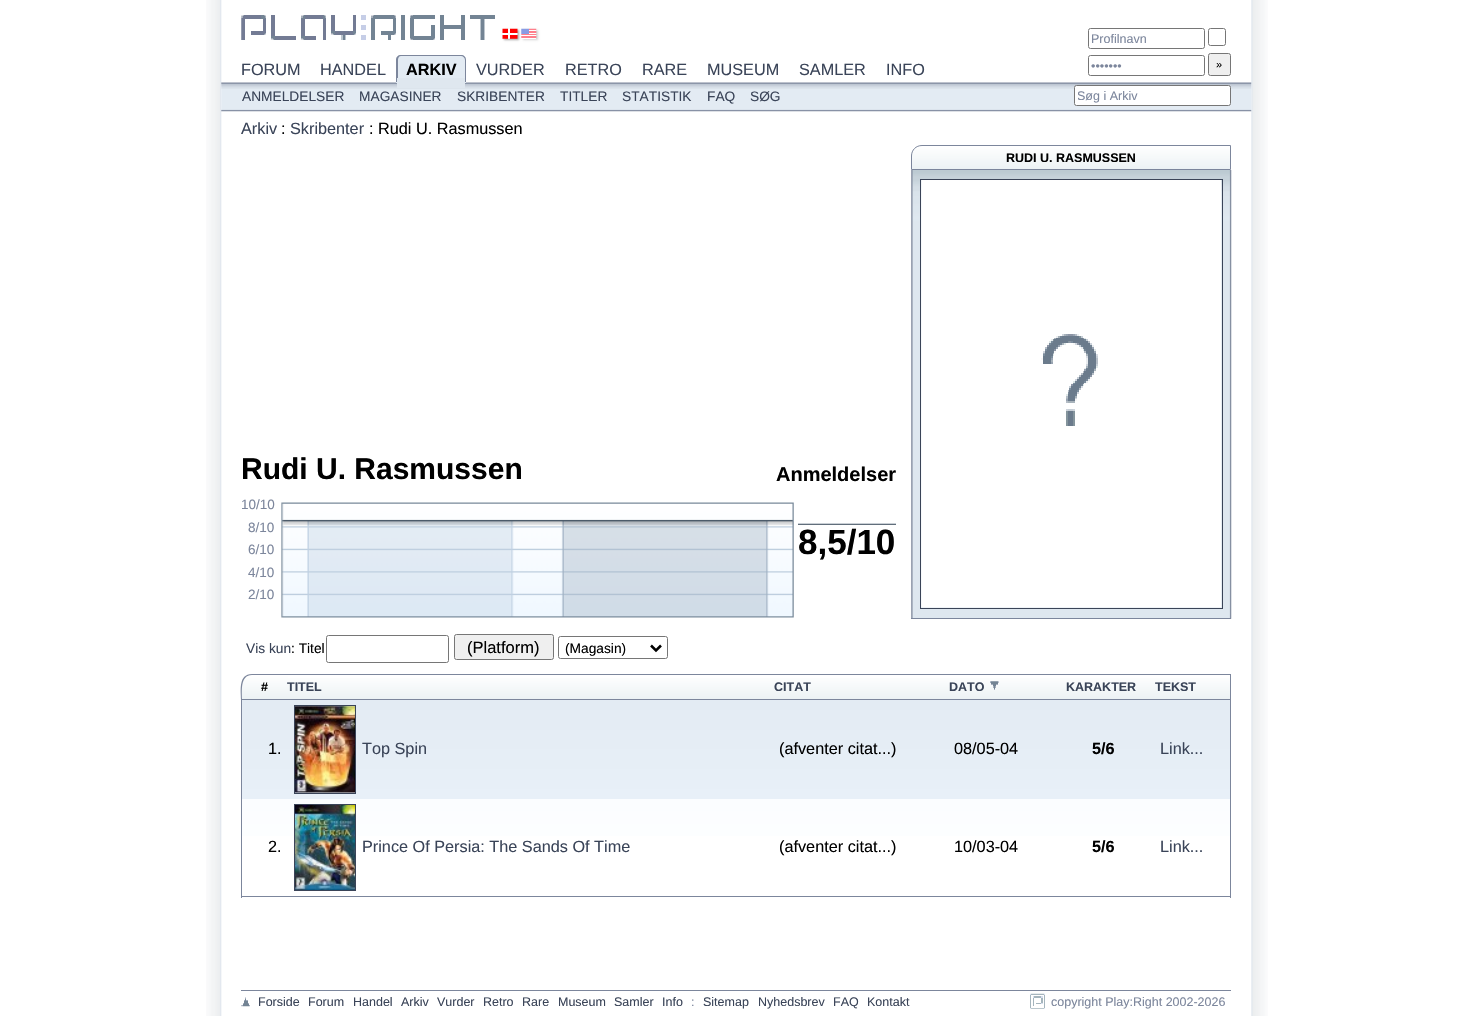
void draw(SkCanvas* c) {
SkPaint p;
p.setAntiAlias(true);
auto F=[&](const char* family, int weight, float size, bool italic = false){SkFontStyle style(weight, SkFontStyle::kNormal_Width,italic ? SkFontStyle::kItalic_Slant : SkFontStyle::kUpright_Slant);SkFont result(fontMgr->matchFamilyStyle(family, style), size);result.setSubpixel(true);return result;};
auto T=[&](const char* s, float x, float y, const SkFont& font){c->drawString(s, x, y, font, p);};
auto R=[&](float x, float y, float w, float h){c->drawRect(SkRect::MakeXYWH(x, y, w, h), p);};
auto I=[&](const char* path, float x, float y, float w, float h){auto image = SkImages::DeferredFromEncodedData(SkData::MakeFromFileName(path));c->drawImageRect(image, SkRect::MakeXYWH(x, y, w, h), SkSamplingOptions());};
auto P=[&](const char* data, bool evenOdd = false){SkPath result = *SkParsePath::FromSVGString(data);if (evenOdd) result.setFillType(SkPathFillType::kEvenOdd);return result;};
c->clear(0xffffffff);
I("1.png",206,0,1062,1016);
I("2.png",241,15,254,25);
p.setColor(0xffaaaaaa);
p.setMaskFilter(SkMaskFilter::MakeBlur(kNormal_SkBlurStyle, 1));
c->drawRect(SkRect::MakeXYWH(504,30,15,10),p);
p.setMaskFilter(nullptr);
c->save();
c->clipPath(P("M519 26h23v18h-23zm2 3h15v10h-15z",true),true);
p.setColor(0xffd4d4d4);
p.setMaskFilter(SkMaskFilter::MakeBlur(kNormal_SkBlurStyle, 1));
c->drawRect(SkRect::MakeXYWH(523,30,15,10),p);
p.setMaskFilter(nullptr);
c->restore();
I("3.png",502,28,16,11);
I("4.png",521,28,16,10);
p.setStroke(true);
p.setStrokeWidth(1);
p.setColor(0xff767676);
c->drawRoundRect(SkRect::MakeXYWH(1088.5,28.5,116,20),2,2,p);
auto f1 = F("Liberation Sans",400,12.5);
p.setStroke(false);
p.setColor(0xff7c869c);
T("Profilnavn",1091,43,f1);
p.setStroke(true);
p.setColor(0xff767676);
c->drawRoundRect(SkRect::MakeXYWH(1208.5,28.5,17,17),2,2,p);
c->drawRoundRect(SkRect::MakeXYWH(1088.5,55.5,116,20),2,2,p);
p.setStroke(false);
p.setColor(0xff7c869c);
T("•••••••",1091,70,f1);
p.setColor(0xffefefef);
c->drawRoundRect(SkRect::MakeXYWH(1208.5,53.5,22,22),2,2,p);
p.setStroke(true);
p.setColor(0xff767676);
c->drawRoundRect(SkRect::MakeXYWH(1208.5,53.5,22,22),2,2,p);
auto f2 = F("Liberation Sans",400,11);
p.setStroke(false);
p.setColor(0xff000000);
T("»",1216,68,f2);
auto f3 = F("Liberation Sans",400,16.25);
p.setColor(0xff3a4458);
T("Arkiv",241,134,f3);
p.setColor(0xff000000);
T(":",281,134,f3);
p.setColor(0xff3a4458);
T("Skribenter",290,134,f3);
p.setColor(0xff000000);
T(": Rudi U. Rasmussen",369,134,f3);
c->save();
c->clipPath(P("M922 145h309v25h-320v-14c0-6 5-11 11-11z"),true);
{
const SkColor colors[] = {0xffffffff,0xffecf2f4};
const float stops[] = {0,1};
const SkPoint ends[] = {{1071,146}, {1071,169}};
p.setShader(SkGradientShader::MakeLinear(ends, colors, stops, 2, SkTileMode::kClamp));
p.setAlpha(255);
}
R(911,146,319,23);
c->restore();
p.setStroke(true);
p.setShader(nullptr);
p.setColor(0xff7c869c);
c->drawPath(P("M922 145.5h308.5v24h-319v-13.5c0-6 4.5-10.5 10.5-10.5z"),p);
auto f4 = F("Liberation Sans",700,12.5);
p.setStroke(false);
p.setColor(0xff000000);
T("RUDI U. RASMUSSEN",1006,162,f4);
I("5.png",911,170,321,449);
p.setColor(0xff7c869c);
R(911,618,320,1);
p.setStroke(true);
p.setColor(0xff3a4458);
c->drawRect(SkRect::MakeXYWH(920.5,179.5,302,429),p);
I("6.png",921,180,301,428);
auto f5 = F("Liberation Sans",700,30);
p.setStroke(false);
p.setColor(0xff000000);
T("Rudi U. Rasmussen",241,479,f5);
auto f6 = F("Liberation Sans",700,20);
T("Anmeldelser",776,481,f6);
auto f7 = F("Liberation Sans",400,13.5);
p.setColor(0xff7c869c);
T("10/10",241,509,f7);
T("8/10",248,532,f7);
T("6/10",248,554,f7);
T("4/10",248,577,f7);
T("2/10",248,599,f7);
I("7.png",281,502,513,116);
p.setColor(0xffc9cfd5);
R(798,523,98,1);
p.setColor(0xff616e7b);
R(798,524,98,1);
auto f8 = F("Liberation Sans",700,35);
p.setColor(0xff000000);
T("8,5/10",798,554,f8);
auto f9 = F("Liberation Sans",400,13.75);
p.setColor(0xff3a4458);
T("Vis kun",246,653,f9);
p.setColor(0xff000000);
T(": Titel",291,653,f9);
p.setStroke(true);
p.setColor(0xff767676);
c->drawRoundRect(SkRect::MakeXYWH(326.5,635.5,122,27),2,2,p);
p.setStroke(false);
p.setColor(0xffefefef);
c->drawRoundRect(SkRect::MakeXYWH(454.5,634.5,99,25),2,2,p);
p.setStroke(true);
p.setColor(0xff767676);
c->drawRoundRect(SkRect::MakeXYWH(454.5,634.5,99,25),2,2,p);
auto f10 = F("Liberation Sans",400,16.5);
p.setStroke(false);
p.setColor(0xff000000);
T("(Platform)",467,653,f10);
p.setStroke(true);
p.setColor(0xff767676);
c->drawRoundRect(SkRect::MakeXYWH(558.5,636.5,109,22),2,2,p);
p.setStrokeWidth(2.5);
p.setColor(0xff000000);
c->drawPath(P("M651 645.5l5 5l5-5"),p);
p.setStroke(false);
T("(Magasin)",565,653,f9);
c->save();
c->clipPath(P("M252 674h36v26h-47v-15c0-6 5-11 11-11z"),true);
{
const SkColor colors[] = {0xffffffff,0xffecf2f4};
const float stops[] = {0,1};
const SkPoint ends[] = {{265,675}, {265,699}};
p.setShader(SkGradientShader::MakeLinear(ends, colors, stops, 2, SkTileMode::kClamp));
p.setAlpha(255);
}
R(241,675,47,24);
c->restore();
p.setShader(nullptr);
p.setColor(0xff7c869c);
c->drawPath(P("M252 674h36v26h-47c0-9-3-26 11-26zm0 1h36v24h-46c0-8-2-24 10-24z",true),p);
p.setColor(0xff000000);
T("#",261,691,f4);
{
const SkColor colors[] = {0xffffffff,0xffecf2f4};
const float stops[] = {0,1};
const SkPoint ends[] = {{531,675}, {531,699}};
p.setShader(SkGradientShader::MakeLinear(ends, colors, stops, 2, SkTileMode::kClamp));
p.setAlpha(255);
}
R(288,678,486,21);
p.setShader(nullptr);
p.setColor(0xff7c869c);
R(288,674,943,1);
R(288,699,867,1);
p.setColor(0xff3a4458);
T("TITEL",287,691,f4);
{
const SkColor colors[] = {0xffffffff,0xffecf2f4};
const float stops[] = {0,1};
const SkPoint ends[] = {{862,675}, {862,699}};
p.setShader(SkGradientShader::MakeLinear(ends, colors, stops, 2, SkTileMode::kClamp));
p.setAlpha(255);
}
R(774,678,176,21);
p.setShader(nullptr);
p.setColor(0xff3a4458);
T("CITAT",774,691,f4);
{
const SkColor colors[] = {0xffffffff,0xffecf2f4};
const float stops[] = {0,1};
const SkPoint ends[] = {{1001,675}, {1001,699}};
p.setShader(SkGradientShader::MakeLinear(ends, colors, stops, 2, SkTileMode::kClamp));
p.setAlpha(255);
}
R(950,678,101,21);
p.setShader(nullptr);
p.setColor(0xff3a4458);
T("DATO",949,691,f4);
I("8.png",990,681,9,9);
{
const SkColor colors[] = {0xffffffff,0xffecf2f4};
const float stops[] = {0,1};
const SkPoint ends[] = {{1103,675}, {1103,699}};
p.setShader(SkGradientShader::MakeLinear(ends, colors, stops, 2, SkTileMode::kClamp));
p.setAlpha(255);
}
R(1051,678,104,21);
p.setShader(nullptr);
p.setColor(0xff3a4458);
T("KARAKTER",1066,691,f4);
{
const SkColor colors[] = {0xffffffff,0xffecf2f4};
const float stops[] = {0,1};
const SkPoint ends[] = {{1193,675}, {1193,699}};
p.setShader(SkGradientShader::MakeLinear(ends, colors, stops, 2, SkTileMode::kClamp));
p.setAlpha(255);
}
R(1155,678,75,21);
p.setShader(nullptr);
p.setColor(0xff7c869c);
R(1230,674,1,224);
R(1155,699,76,1);
p.setColor(0xff3a4458);
T("TEKST",1155,691,f4);
{
const SkColor colors[] = {0xffe3ebf3,0xffe8f0f8};
const float stops[] = {0,1};
const SkPoint ends[] = {{736,700}, {736,799}};
p.setShader(SkGradientShader::MakeLinear(ends, colors, stops, 2, SkTileMode::kClamp));
p.setAlpha(255);
}
R(242,700,988,99);
p.setShader(nullptr);
p.setColor(0xff7c869c);
R(241,700,1,99);
p.setColor(0xff000000);
T("1.",268,754,f3);
p.setStroke(true);
p.setStrokeWidth(1);
p.setColor(0xff3a4458);
c->drawRect(SkRect::MakeXYWH(294.5,705.5,61,88),p);
I("9.png",295,706,60,87);
p.setStroke(false);
T("Top Spin",362,754,f3);
p.setColor(0xff000000);
T("(afventer citat...)",779,754,f3);
T("08/05-04",954,754,f3);
auto f11 = F("Liberation Sans",700,16.25);
T("5/6",1092,754,f11);
p.setColor(0xff3a4458);
T("Link...",1160,754,f3);
{
const SkColor colors[] = {0xfffbfdff,0xffffffff};
const float stops[] = {0,1};
const SkPoint ends[] = {{736,799}, {736,898}};
p.setShader(SkGradientShader::MakeLinear(ends, colors, stops, 2, SkTileMode::kClamp));
p.setAlpha(255);
}
R(242,799,988,37);
p.setShader(nullptr);
p.setColor(0xff7c869c);
R(241,896,990,1);
R(241,799,1,99);
p.setColor(0xff000000);
T("2.",268,852,f3);
p.setStroke(true);
p.setColor(0xff3a4458);
c->drawRect(SkRect::MakeXYWH(294.5,804.5,61,86),p);
I("10.png",295,805,60,85);
p.setStroke(false);
T("Prince Of Persia: The Sands Of Time",362,852,f3);
p.setColor(0xff000000);
T("(afventer citat...)",779,852,f3);
T("10/03-04",954,852,f3);
T("5/6",1092,852,f11);
p.setColor(0xff3a4458);
T("Link...",1160,852,f3);
T("FORUM",241,75,f3);
T("HANDEL",320,75,f3);
I("11.png",221,82,1031,30);
p.setColor(0xffe3ebf3);
c->drawPath(P("M401 55h60c3 0 5 2 5 5v23h-70v-23c0-3 2-5 5-5z"),p);
p.setColor(0xff7c869c);
c->drawPath(P("M401 55h60c3 0 5 2 5 5v22h-70v-22c0-3 2-5 5-5zm0 1h60c2 0 4 2 4 4v22h-67v-22c0-2 1-4 3-4z",true),p);
p.setColor(0xff000000);
T("ARKIV",406,75,f11);
p.setColor(0xffdfe7ef);
R(397,78,68,10);
p.setColor(0xff3a4458);
T("VURDER",476,75,f3);
T("RETRO",565,75,f3);
T("RARE",642,75,f3);
T("MUSEUM",707,75,f3);
T("SAMLER",799,75,f3);
T("INFO",886,75,f3);
T("ANMELDELSER",242,101,f9);
T("MAGASINER",359,101,f9);
T("SKRIBENTER",457,101,f9);
T("TITLER",560,101,f9);
T("STATISTIK",622,101,f9);
T("FAQ",707,101,f9);
T("SØG",750,101,f9);
p.setColor(0xffffffff);
c->drawRoundRect(SkRect::MakeXYWH(1074.5,85.5,156,20),2,2,p);
p.setStroke(true);
p.setColor(0xff767676);
c->drawRoundRect(SkRect::MakeXYWH(1074.5,85.5,156,20),2,2,p);
c->save();
c->clipRect(SkRect::MakeXYWH(1078,89,150,14));
p.setStroke(false);
p.setColor(0xff7c869c);
T("Søg i Arkiv",1077,100,f1);
c->restore();
R(241,990,990,1);
I("12.png",241,997,9,10);
p.setColor(0xff3a4458);
T("Forside",258,1006,f1);
T("Forum",308,1006,f1);
T("Handel",353,1006,f1);
T("Arkiv",401,1006,f1);
T("Vurder",437,1006,f1);
T("Retro",483,1006,f1);
T("Rare",522,1006,f1);
T("Museum",558,1006,f1);
T("Samler",614,1006,f1);
T("Info",662,1006,f1);
p.setColor(0xff7c869c);
T(":",691,1006,f1);
p.setColor(0xff3a4458);
T("Sitemap",703,1006,f1);
T("Nyhedsbrev",758,1006,f1);
T("FAQ",833,1006,f1);
T("Kontakt",867,1006,f1);
I("13.png",1030,993,15,16);
p.setColor(0xff7c869c);
T("copyright Play:Right 2002-2026",1051,1006,f1);
}
